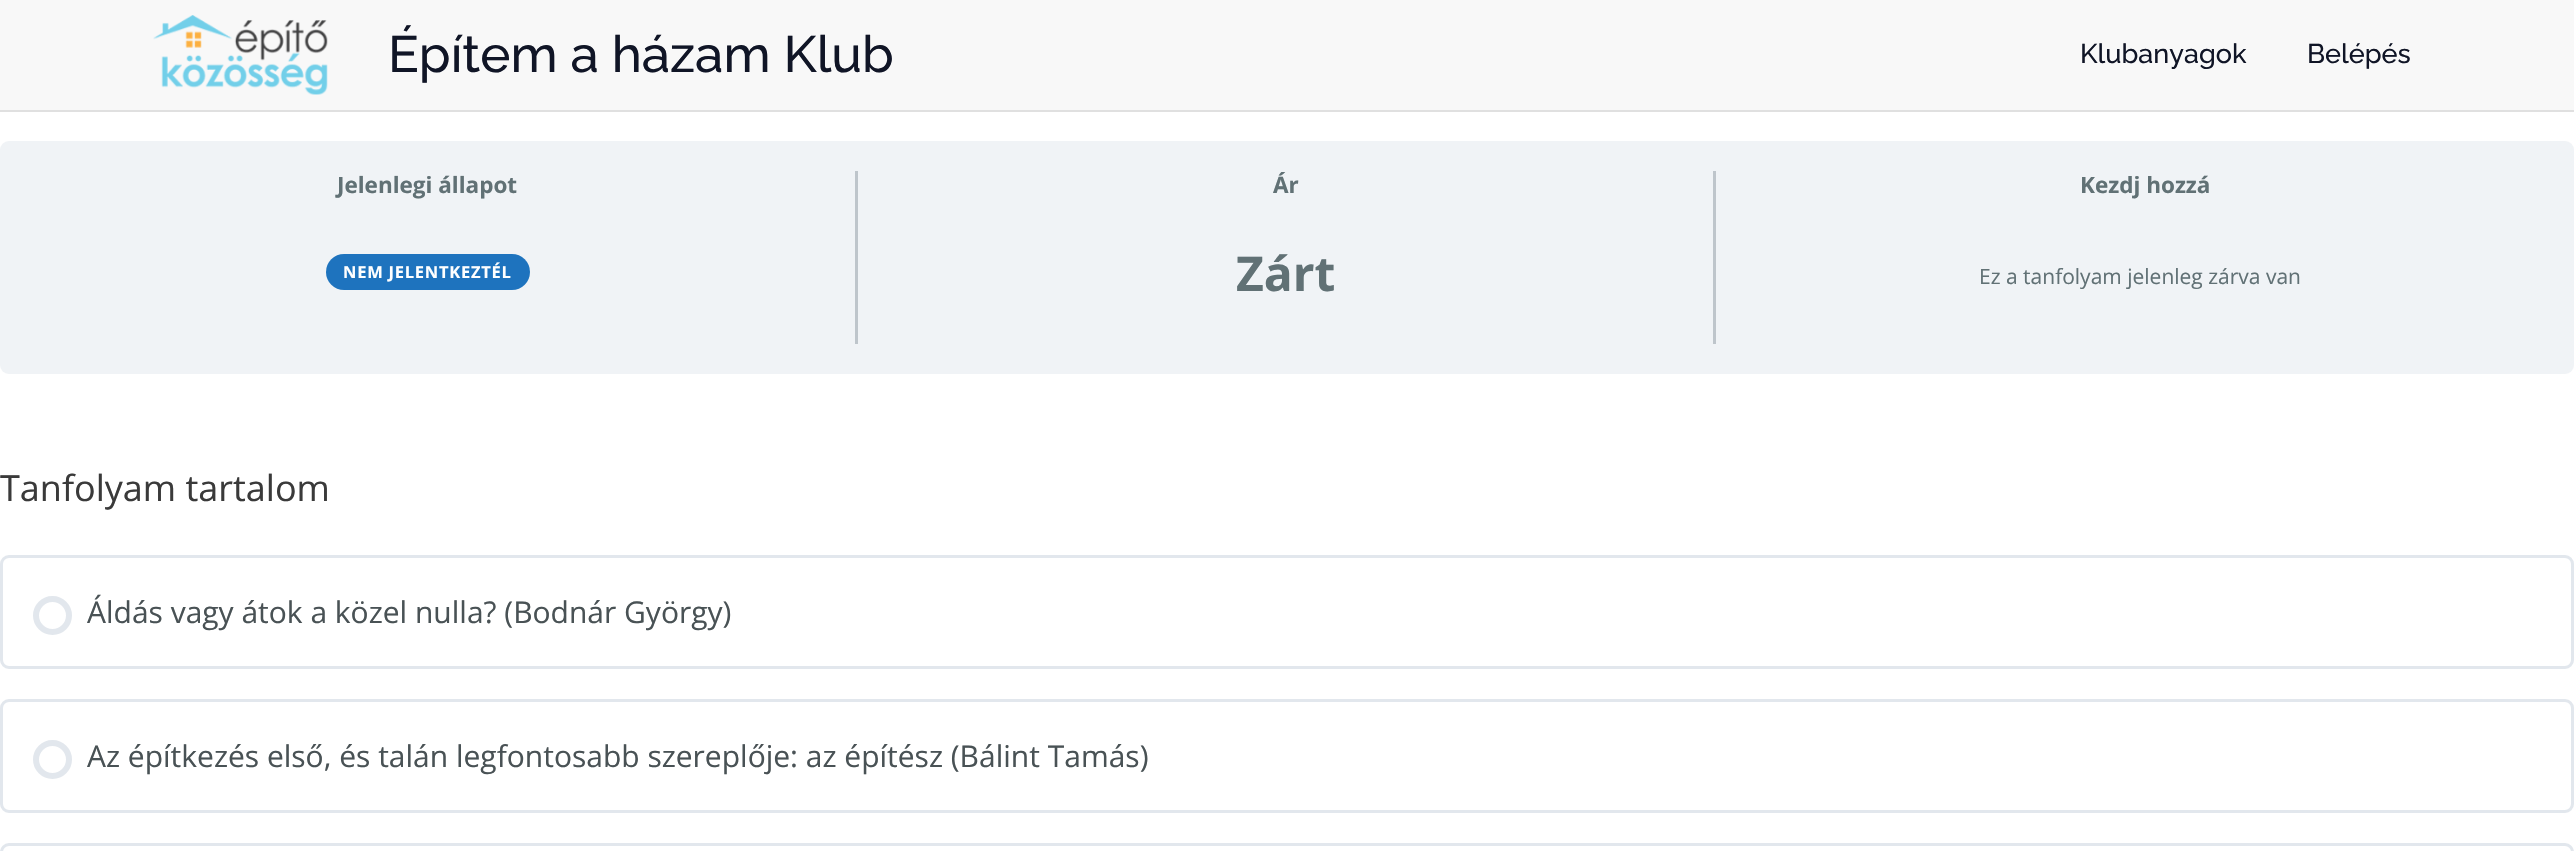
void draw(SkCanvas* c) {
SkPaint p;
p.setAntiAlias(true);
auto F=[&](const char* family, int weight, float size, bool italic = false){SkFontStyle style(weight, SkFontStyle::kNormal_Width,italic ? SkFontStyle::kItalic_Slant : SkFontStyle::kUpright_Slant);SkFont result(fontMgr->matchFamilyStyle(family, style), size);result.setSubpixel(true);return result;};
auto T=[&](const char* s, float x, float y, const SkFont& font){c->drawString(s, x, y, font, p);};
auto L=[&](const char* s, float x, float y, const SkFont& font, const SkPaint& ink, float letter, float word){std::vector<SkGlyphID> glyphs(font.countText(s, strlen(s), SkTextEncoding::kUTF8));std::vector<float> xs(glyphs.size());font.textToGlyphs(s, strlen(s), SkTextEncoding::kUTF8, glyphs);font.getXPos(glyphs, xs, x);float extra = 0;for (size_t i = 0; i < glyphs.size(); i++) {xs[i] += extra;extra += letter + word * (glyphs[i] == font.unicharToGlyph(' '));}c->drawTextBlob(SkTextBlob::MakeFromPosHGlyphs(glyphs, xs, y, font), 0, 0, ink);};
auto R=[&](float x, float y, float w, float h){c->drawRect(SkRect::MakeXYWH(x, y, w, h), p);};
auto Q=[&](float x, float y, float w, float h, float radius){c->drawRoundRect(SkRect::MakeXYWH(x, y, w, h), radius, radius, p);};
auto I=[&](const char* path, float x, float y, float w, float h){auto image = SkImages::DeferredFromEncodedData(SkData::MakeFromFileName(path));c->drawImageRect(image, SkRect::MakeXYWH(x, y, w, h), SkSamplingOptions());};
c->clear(0xffffffff);
p.setColor(0xfff8f8f8);
R(0,0,2574,110);
p.setColor(0xffe0e0e0);
R(0,110,2574,2);
I("1.png",153,15,175,80);
auto f1 = F("Raleway",500,51);
p.setColor(0xff101526);
T("Építem a házam Klub",388,72,f1);
auto f2 = F("Raleway",500,27);
T("Klubanyagok",2080,63,f2);
T("Belépés",2307,63,f2);
p.setColor(0xfff0f3f6);
Q(0,141,2574,233,9);
p.setColor(0xffbec5cb);
R(855,171,3,173);
auto f3 = F("Open Sans",700,22.5);
p.setColor(0xff617175);
T("Jelenlegi állapot",337,193,f3);
p.setColor(0xff1e73be);
Q(326,254,204,36,18);
auto f4 = F("Open Sans",700,16.5);
p.setColor(0xffffffff);
L("NEM JELENTKEZTÉL",343,278,f4,p,.75,0);
p.setColor(0xffbec5cb);
R(1713,171,3,173);
p.setColor(0xff617175);
T("Ár",1273,193,f3);
auto f5 = F("Open Sans",700,48);
T("Zárt",1236,291,f5);
T("Kezdj hozzá",2080,193,f3);
auto f6 = F("Open Sans",400,21);
T("Ez a tanfolyam jelenleg zárva van",1979,284,f6);
auto f7 = F("Open Sans",400,36);
p.setColor(0xff3a3a3a);
T("Tanfolyam tartalom",0,501,f7);
p.setStroke(true);
p.setStrokeWidth(3);
p.setColor(0xffe2e7ed);
c->drawRoundRect(SkRect::MakeXYWH(1.5,556.5,2571,111),7.5,7.5,p);
p.setStrokeWidth(6);
c->drawCircle(52.5,615.5,16.5,p);
auto f8 = F("Open Sans",400,30);
p.setStroke(false);
p.setColor(0xff495255);
T("Áldás vagy átok a közel nulla? (Bodnár György)",87,623,f8);
p.setStroke(true);
p.setStrokeWidth(3);
p.setColor(0xffe2e7ed);
c->drawRoundRect(SkRect::MakeXYWH(1.5,700.5,2571,111),7.5,7.5,p);
p.setStrokeWidth(6);
c->drawCircle(52.5,759.5,16.5,p);
p.setStroke(false);
p.setColor(0xff495255);
T("Az építkezés első, és talán legfontosabb szereplője: az építész (Bálint Tamás)",87,767,f8);
p.setStroke(true);
p.setStrokeWidth(3);
p.setColor(0xffe2e7ed);
c->drawRoundRect(SkRect::MakeXYWH(1.5,844.5,2571,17),7.5,7.5,p);
}
